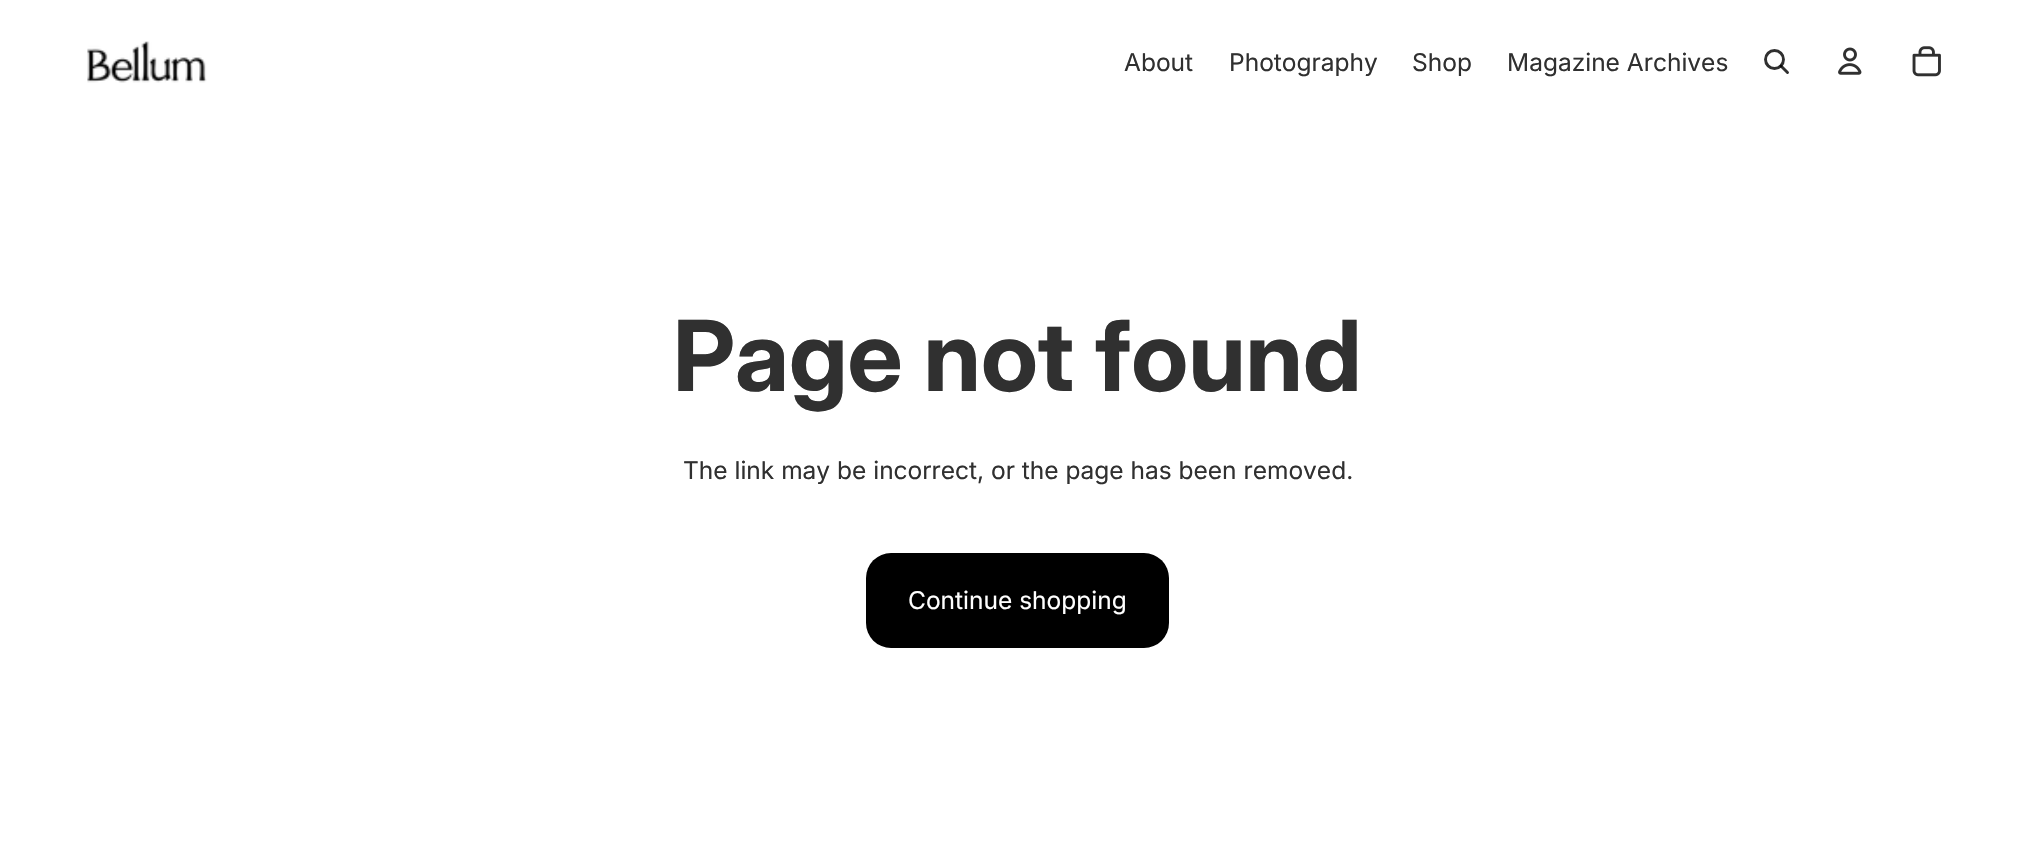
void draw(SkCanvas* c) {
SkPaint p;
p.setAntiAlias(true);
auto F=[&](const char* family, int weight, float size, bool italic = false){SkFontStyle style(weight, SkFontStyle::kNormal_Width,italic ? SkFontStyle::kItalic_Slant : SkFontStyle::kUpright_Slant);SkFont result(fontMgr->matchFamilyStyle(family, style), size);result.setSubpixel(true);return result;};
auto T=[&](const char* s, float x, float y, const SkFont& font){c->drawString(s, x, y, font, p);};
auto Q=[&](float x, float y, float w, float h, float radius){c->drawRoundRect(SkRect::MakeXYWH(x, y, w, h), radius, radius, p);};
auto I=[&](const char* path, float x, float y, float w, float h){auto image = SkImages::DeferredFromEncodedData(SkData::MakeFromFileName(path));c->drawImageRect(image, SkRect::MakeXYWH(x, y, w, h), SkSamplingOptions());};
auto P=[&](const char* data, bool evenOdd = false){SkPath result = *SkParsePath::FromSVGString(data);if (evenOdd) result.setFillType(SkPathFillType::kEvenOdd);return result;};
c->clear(0xffffffff);
I("1.png",87,41,120,42);
auto f1 = F("Inter",400,24.5);
p.setColor(0xff303030);
T("About",1124,71,f1);
T("Photography",1229,71,f1);
T("Shop",1412,71,f1);
T("Magazine Archives",1507,71,f1);
p.setStroke(true);
p.setStrokeWidth(2.9);
c->drawCircle(1774.5,59.5,9,p);
p.setStrokeCap(SkPaint::kRound_Cap);
p.setStrokeJoin(SkPaint::kRound_Join);
p.setColor(0xcf000000);
c->drawPath(P("M1781 66l6.5 6.5"),p);
I("2.png",1838,47,24,28);
I("3.png",1912,46,29,31);
auto f2 = F("Inter",700,98);
p.setStroke(false);
p.setColor(0xff303030);
T("Page not found",673,391,f2);
T("The link may be incorrect, or the page has been removed.",683,479,f1);
p.setColor(0xff000000);
Q(866,553,303,95,25);
p.setColor(0xffffffff);
T("Continue shopping",908,609,f1);
}
